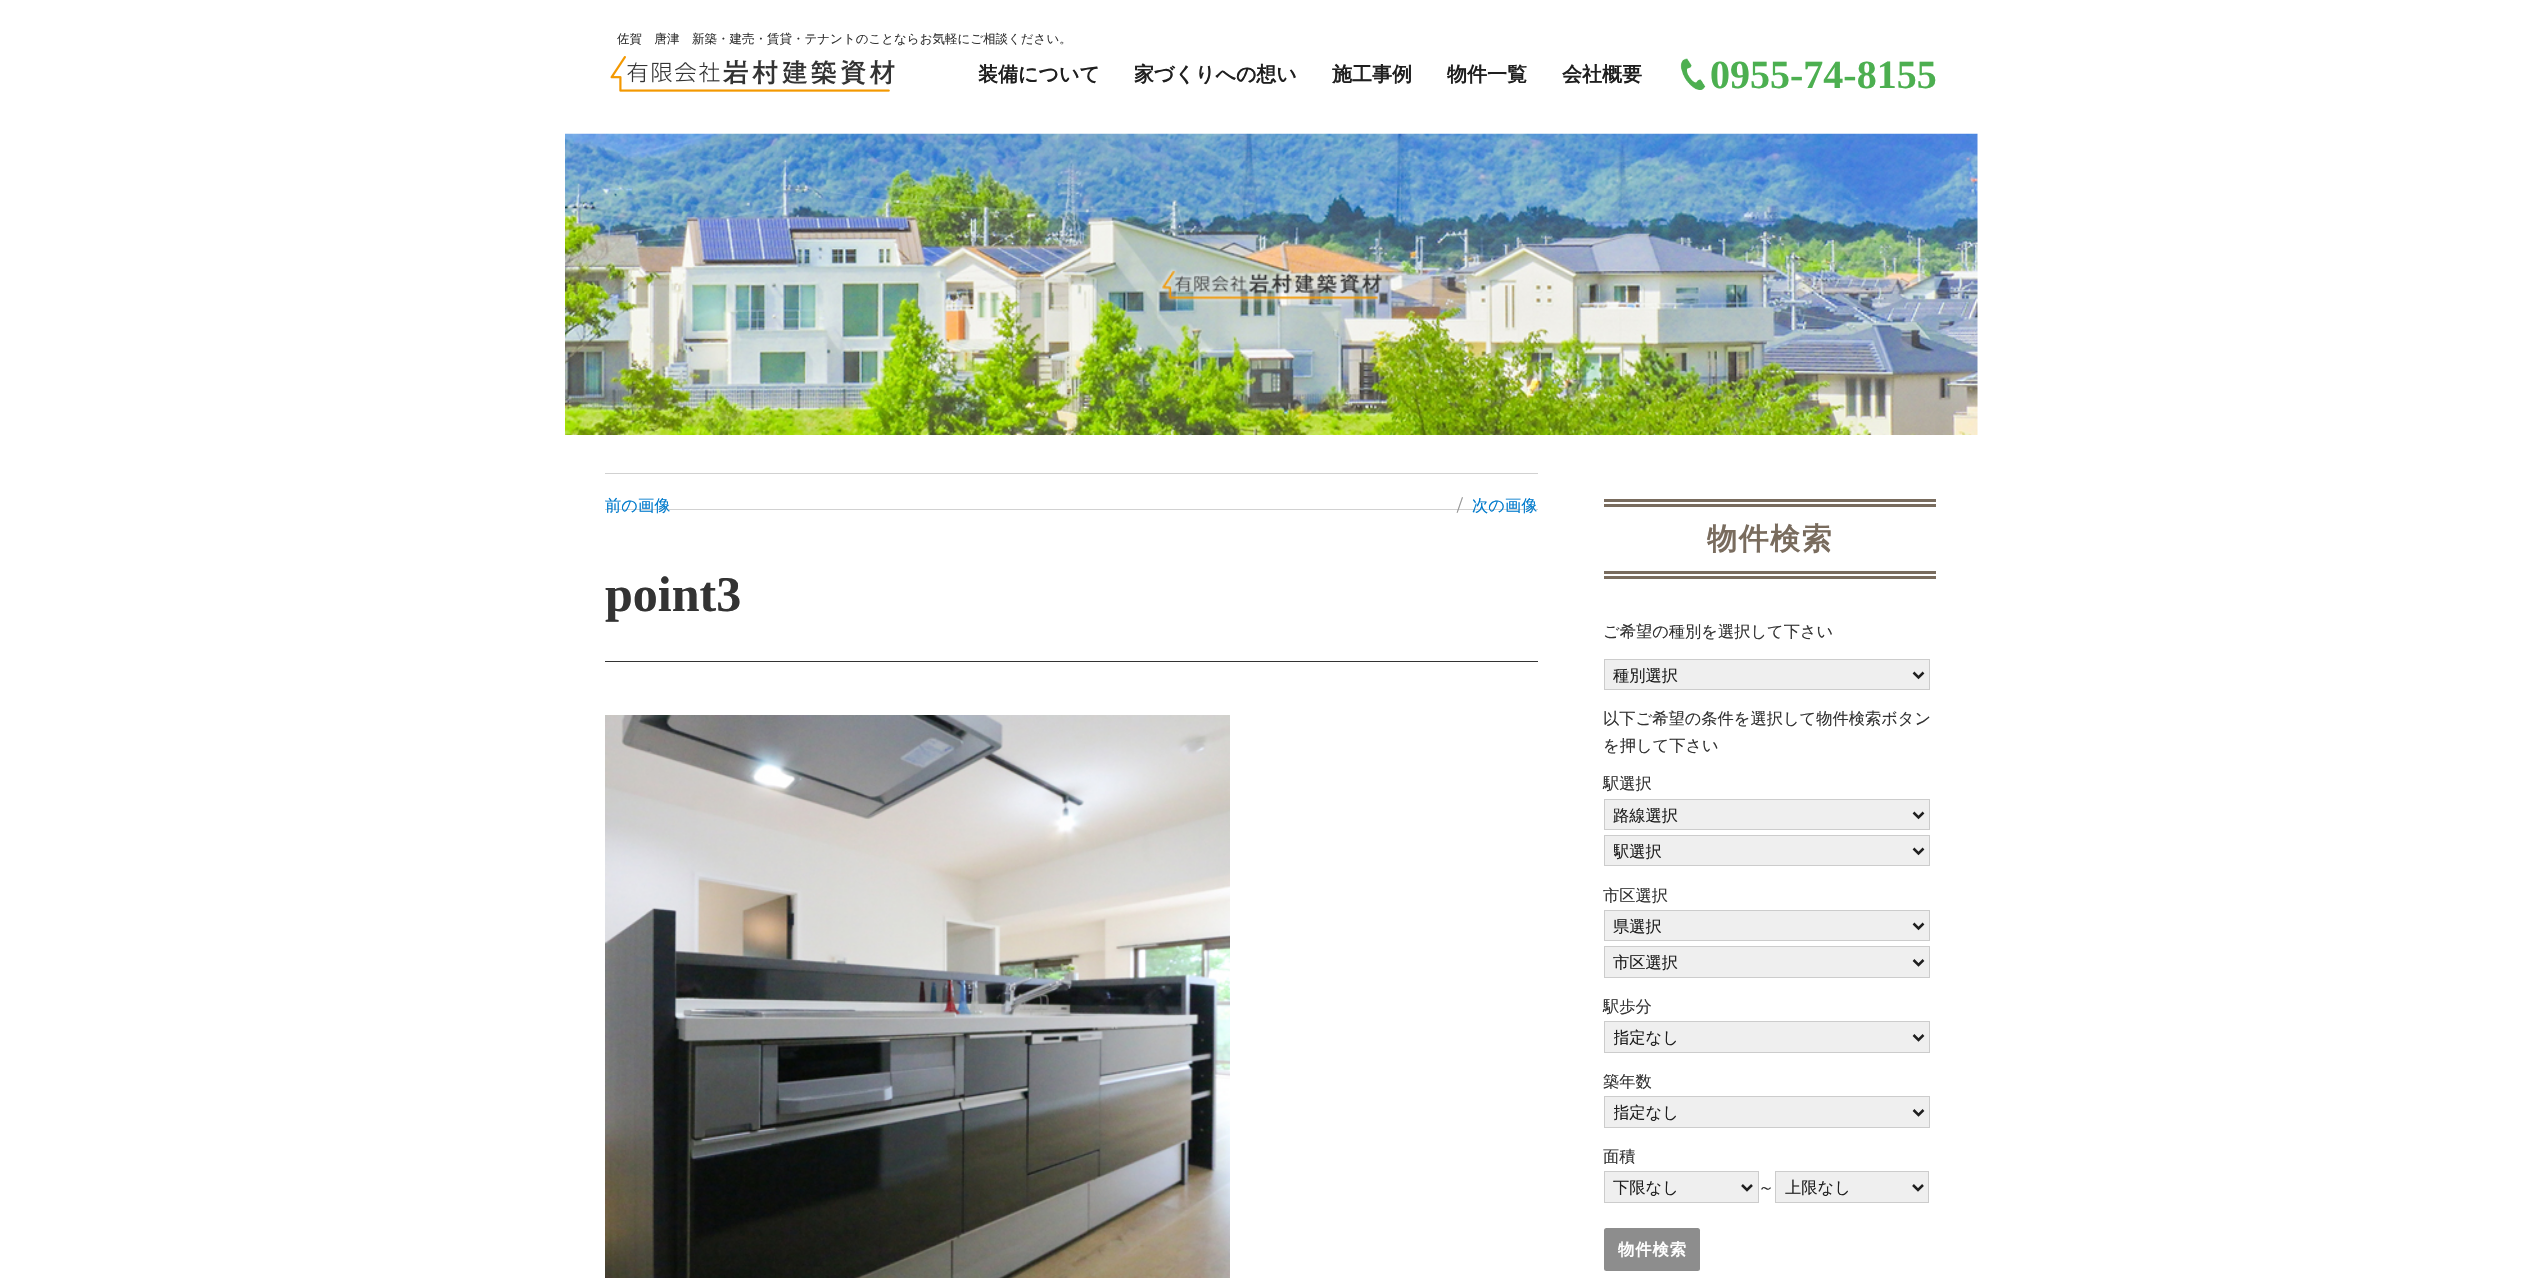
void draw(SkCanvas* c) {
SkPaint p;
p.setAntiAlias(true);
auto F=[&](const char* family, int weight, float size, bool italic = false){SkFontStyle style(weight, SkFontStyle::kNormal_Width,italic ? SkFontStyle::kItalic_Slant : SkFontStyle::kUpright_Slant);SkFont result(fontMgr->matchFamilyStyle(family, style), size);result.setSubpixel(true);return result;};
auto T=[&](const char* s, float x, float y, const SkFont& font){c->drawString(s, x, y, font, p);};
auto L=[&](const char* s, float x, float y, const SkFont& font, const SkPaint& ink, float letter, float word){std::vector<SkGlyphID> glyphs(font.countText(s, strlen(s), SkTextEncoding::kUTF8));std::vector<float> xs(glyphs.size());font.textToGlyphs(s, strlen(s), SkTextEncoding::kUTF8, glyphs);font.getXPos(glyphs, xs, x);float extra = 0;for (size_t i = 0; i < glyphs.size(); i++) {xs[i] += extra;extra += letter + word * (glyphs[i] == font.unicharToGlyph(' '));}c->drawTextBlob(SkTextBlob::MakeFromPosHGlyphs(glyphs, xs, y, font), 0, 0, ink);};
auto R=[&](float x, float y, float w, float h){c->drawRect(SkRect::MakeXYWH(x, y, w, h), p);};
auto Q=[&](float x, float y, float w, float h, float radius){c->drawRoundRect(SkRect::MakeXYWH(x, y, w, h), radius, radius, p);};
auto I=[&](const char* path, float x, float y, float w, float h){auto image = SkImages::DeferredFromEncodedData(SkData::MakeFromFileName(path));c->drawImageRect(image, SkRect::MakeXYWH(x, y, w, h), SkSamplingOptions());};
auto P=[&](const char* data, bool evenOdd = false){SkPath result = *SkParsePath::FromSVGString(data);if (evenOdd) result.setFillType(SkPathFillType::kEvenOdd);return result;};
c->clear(0xffffffff);
auto f1 = F("WenQuanYi Zen Hei",500,12.5);
p.setColor(0xff333333);
T("佐賀　唐津　新築・建売・賃貸・テナントのことならお気軽にご相談ください。",617,43,f1);
I("1.png",610,56,285,36);
auto f2 = F("WenQuanYi Zen Hei",700,20);
p.setColor(0xff1f1f1f);
T("装備について",978,81,f2);
T("家づくりへの想い",1134,81,f2);
T("施工事例",1332,81,f2);
T("物件一覧",1447,81,f2);
T("会社概要",1562,81,f2);
I("2.png",1680,58,26,32);
auto f3 = F("Liberation Serif",700,40);
p.setColor(0xff4caf50);
T("0955-74-8155",1710,88,f3);
I("3.png",565,133,1413,302);
p.setColor(0xffd1d1d1);
R(605,473,933,1);
R(605,509,933,1);
auto f4 = F("WenQuanYi Zen Hei",500,16.25);
p.setColor(0xff007acc);
T("前の画像",605,511,f4);
auto f5 = F("Montserrat",100,16.25);
p.setColor(0xff949494);
T("/",1457,511,f5);
p.setColor(0xff007acc);
T("次の画像",1472,511,f4);
p.setColor(0xff333333);
R(605,661,933,1);
auto f6 = F("Liberation Serif",700,50);
T("point3",605,611,f6);
I("4.png",605,715,625,563);
p.setColor(0xff796c5e);
R(1604,499,332,3);
R(1604,504,332,3);
R(1604,571,332,3);
R(1604,576,332,3);
auto f7 = F("WenQuanYi Zen Hei",700,30);
L("物件検索",1707,549,f7,p,1.5,0);
p.setColor(0xff333333);
T("ご希望の種別を選択して下さい",1603,637,f4);
p.setColor(0xffefefef);
c->drawRect(SkRect::MakeXYWH(1604.5,659.5,325,30),p);
p.setStroke(true);
p.setStrokeWidth(1);
p.setColor(0xffcccccc);
c->drawRect(SkRect::MakeXYWH(1604.5,659.5,325,30),p);
p.setStrokeWidth(2.5);
p.setColor(0xff1f1f1f);
c->drawPath(P("M1913.5 672.5l5 5l5-5"),p);
p.setStroke(false);
T("種別選択",1613,681,f4);
p.setColor(0xff333333);
T("以下ご希望の条件を選択して物件検索ボタン",1603,724,f4);
T("を押して下さい",1603,751,f4);
T("駅選択",1603,789,f4);
p.setColor(0xffefefef);
c->drawRect(SkRect::MakeXYWH(1604.5,799.5,325,30),p);
p.setStroke(true);
p.setStrokeWidth(1);
p.setColor(0xffcccccc);
c->drawRect(SkRect::MakeXYWH(1604.5,799.5,325,30),p);
p.setStrokeWidth(2.5);
p.setColor(0xff1f1f1f);
c->drawPath(P("M1913.5 812.5l5 5l5-5"),p);
p.setStroke(false);
T("路線選択",1613,821,f4);
p.setColor(0xffefefef);
c->drawRect(SkRect::MakeXYWH(1604.5,835.5,325,30),p);
p.setStroke(true);
p.setStrokeWidth(1);
p.setColor(0xffcccccc);
c->drawRect(SkRect::MakeXYWH(1604.5,835.5,325,30),p);
p.setStrokeWidth(2.5);
p.setColor(0xff1f1f1f);
c->drawPath(P("M1913.5 848.5l5 5l5-5"),p);
c->save();
c->clipRect(SkRect::MakeXYWH(1614,840,291,21));
p.setStroke(false);
T("駅選択",1613,857,f4);
c->restore();
p.setColor(0xff333333);
T("市区選択",1603,901,f4);
p.setColor(0xffefefef);
c->drawRect(SkRect::MakeXYWH(1604.5,910.5,325,30),p);
p.setStroke(true);
p.setStrokeWidth(1);
p.setColor(0xffcccccc);
c->drawRect(SkRect::MakeXYWH(1604.5,910.5,325,30),p);
p.setStrokeWidth(2.5);
p.setColor(0xff1f1f1f);
c->drawPath(P("M1913.5 923.5l5 5l5-5"),p);
p.setStroke(false);
T("県選択",1613,932,f4);
p.setColor(0xffefefef);
c->drawRect(SkRect::MakeXYWH(1604.5,946.5,325,31),p);
p.setStroke(true);
p.setStrokeWidth(1);
p.setColor(0xffcccccc);
c->drawRect(SkRect::MakeXYWH(1604.5,946.5,325,31),p);
p.setStrokeWidth(2.5);
p.setColor(0xff1f1f1f);
c->drawPath(P("M1913.5 960l5 5l5-5"),p);
p.setStroke(false);
T("市区選択",1613,968,f4);
p.setColor(0xff333333);
T("駅歩分",1603,1012,f4);
p.setColor(0xffefefef);
c->drawRect(SkRect::MakeXYWH(1604.5,1021.5,325,31),p);
p.setStroke(true);
p.setStrokeWidth(1);
p.setColor(0xffcccccc);
c->drawRect(SkRect::MakeXYWH(1604.5,1021.5,325,31),p);
p.setStrokeWidth(2.5);
p.setColor(0xff1f1f1f);
c->drawPath(P("M1913.5 1035l5 5l5-5"),p);
c->save();
c->clipRect(SkRect::MakeXYWH(1614,1026,291,22));
p.setStroke(false);
T("指定なし",1613,1043,f4);
c->restore();
p.setColor(0xff333333);
T("築年数",1603,1087,f4);
p.setColor(0xffefefef);
c->drawRect(SkRect::MakeXYWH(1604.5,1096.5,325,31),p);
p.setStroke(true);
p.setStrokeWidth(1);
p.setColor(0xffcccccc);
c->drawRect(SkRect::MakeXYWH(1604.5,1096.5,325,31),p);
p.setStrokeWidth(2.5);
p.setColor(0xff1f1f1f);
c->drawPath(P("M1913.5 1110l5 5l5-5"),p);
c->save();
c->clipRect(SkRect::MakeXYWH(1614,1101,291,22));
p.setStroke(false);
T("指定なし",1613,1118,f4);
c->restore();
p.setColor(0xff333333);
T("面積",1603,1162,f4);
p.setColor(0xffefefef);
c->drawRect(SkRect::MakeXYWH(1604.5,1171.5,154,31),p);
p.setStroke(true);
p.setStrokeWidth(1);
p.setColor(0xffcccccc);
c->drawRect(SkRect::MakeXYWH(1604.5,1171.5,154,31),p);
p.setStrokeWidth(2.5);
p.setColor(0xff1f1f1f);
c->drawPath(P("M1742 1185l5 5l5-5"),p);
p.setStroke(false);
T("下限なし",1613,1193,f4);
p.setColor(0xff333333);
T("～",1758,1193,f4);
p.setColor(0xffefefef);
c->drawRect(SkRect::MakeXYWH(1775.5,1171.5,153,31),p);
p.setStroke(true);
p.setStrokeWidth(1);
p.setColor(0xffcccccc);
c->drawRect(SkRect::MakeXYWH(1775.5,1171.5,153,31),p);
p.setStrokeWidth(2.5);
p.setColor(0xff1f1f1f);
c->drawPath(P("M1913 1185l5 5l5-5"),p);
p.setStroke(false);
T("上限なし",1785,1193,f4);
p.setColor(0xff8d8d8d);
Q(1604,1228,96,43,2.5);
auto f8 = F("WenQuanYi Zen Hei",700,16.25);
p.setColor(0xffffffff);
L("物件検索",1618,1255,f8,p,1,0);
}
